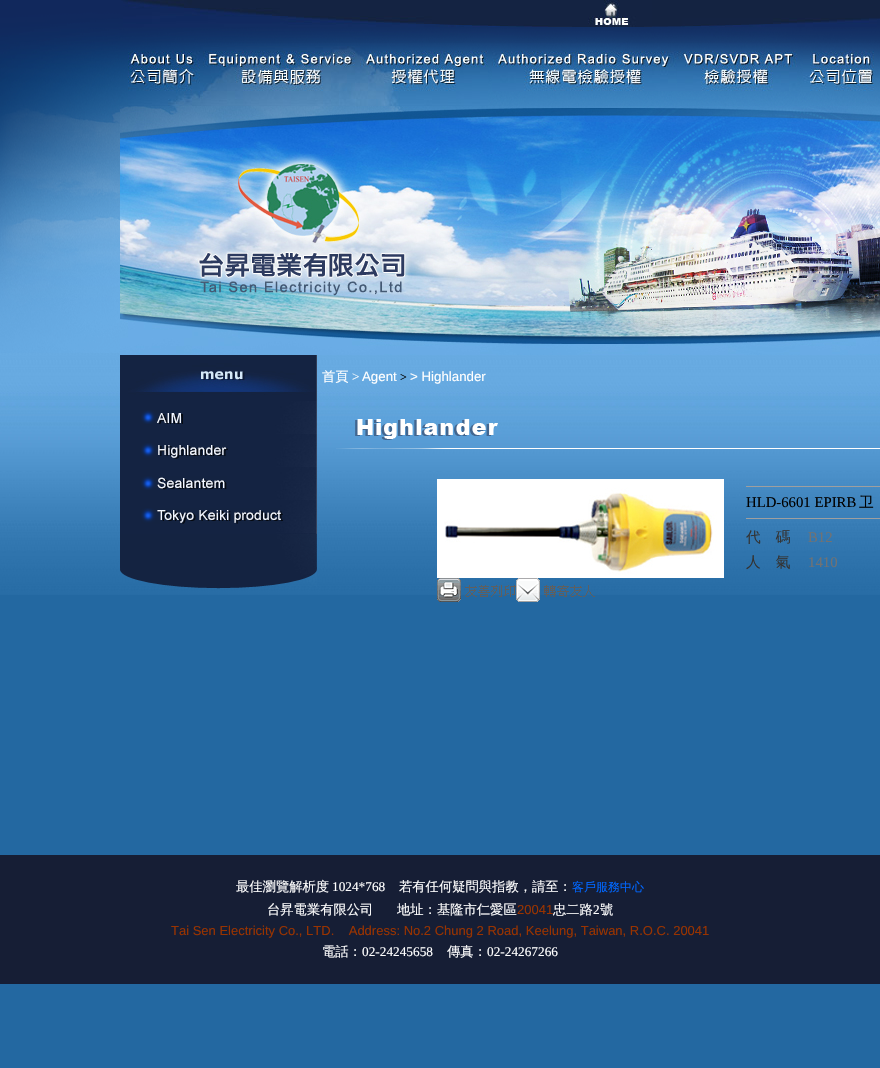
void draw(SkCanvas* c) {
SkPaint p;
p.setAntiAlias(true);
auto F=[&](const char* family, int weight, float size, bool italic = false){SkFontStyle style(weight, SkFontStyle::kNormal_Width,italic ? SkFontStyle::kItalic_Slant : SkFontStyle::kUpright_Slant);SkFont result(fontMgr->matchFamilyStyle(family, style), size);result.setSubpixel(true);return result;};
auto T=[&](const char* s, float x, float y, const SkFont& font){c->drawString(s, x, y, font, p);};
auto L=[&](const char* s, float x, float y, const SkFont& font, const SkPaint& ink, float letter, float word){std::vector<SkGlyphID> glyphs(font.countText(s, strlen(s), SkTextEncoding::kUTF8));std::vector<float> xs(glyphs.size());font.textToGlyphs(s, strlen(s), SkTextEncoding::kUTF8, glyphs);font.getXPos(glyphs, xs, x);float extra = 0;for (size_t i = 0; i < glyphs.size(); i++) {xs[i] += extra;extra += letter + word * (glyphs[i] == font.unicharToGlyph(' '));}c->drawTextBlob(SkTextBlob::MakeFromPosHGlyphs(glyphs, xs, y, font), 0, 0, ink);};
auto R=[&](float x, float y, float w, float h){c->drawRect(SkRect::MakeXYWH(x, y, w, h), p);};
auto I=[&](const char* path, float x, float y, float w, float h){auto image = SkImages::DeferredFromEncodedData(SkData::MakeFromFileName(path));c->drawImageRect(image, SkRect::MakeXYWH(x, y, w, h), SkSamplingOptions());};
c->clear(0xff2368a1);
I("1.png",0,353,880,242);
I("2.png",0,0,880,353);
I("3.png",123,0,369,27);
I("4.png",492,0,160,27);
I("5.png",682,18,195,9);
I("6.png",128,51,75,55);
I("7.png",203,46,157,60);
I("8.png",360,51,128,55);
I("9.png",492,51,184,40);
I("10.png",677,51,120,40);
I("11.png",803,51,71,40);
I("12.png",120,106,760,249);
I("13.png",120,355,197,46);
I("14.png",120,401,197,133);
I("15.png",141,410,42,14);
I("16.png",141,443,87,16);
I("17.png",141,476,86,14);
I("18.png",141,508,142,16);
I("19.png",120,534,197,55);
auto f1 = F("WenQuanYi Zen Hei",500,13.3);
p.setColor(0xffffffff);
T("首頁",322,381,f1);
auto f2 = F("Liberation Serif",400,13.3);
T(">",352,381,f2);
auto f3 = F("Liberation Sans",400,13.3);
T("Agent",362,381,f3);
auto f4 = F("Liberation Serif",400,12);
p.setColor(0xff000000);
T(">",400,381,f4);
p.setColor(0xffffffff);
T("> Highlander",410,381,f3);
I("20.png",336,419,544,30);
I("21.png",437,479,287,99);
I("22.png",437,578,79,24);
I("23.png",516,578,79,24);
p.setColor(0xff9f9f9f);
R(746,486,134,1);
auto f5 = F("Liberation Serif",400,14.75);
p.setColor(0xff000000);
T("HLD-6601 EPIRB",746,507,f5);
auto f6 = F("WenQuanYi Zen Hei",500,14.75);
T("卫",859,507,f6);
p.setColor(0xff9f9f9f);
R(746,518,134,1);
p.setColor(0xff333333);
L("代碼",746,542,f6,p,15,0);
p.setColor(0xff727272);
T("B12",808,542,f5);
p.setColor(0xff333333);
L("人氣",746,567,f6,p,15,0);
p.setColor(0xff727272);
T("1410",808,567,f5);
p.setColor(0xff161e35);
R(0,855,880,129);
p.setColor(0xffffffff);
T("最佳瀏覽解析度",236,891,f1);
T("1024*768",332,891,f2);
T("若有任何疑問與指教，請至：",399,891,f1);
auto f7 = F("WenQuanYi Zen Hei",500,12);
p.setColor(0xff0066ff);
T("客戶服務中心",572,891,f7);
p.setColor(0xffffffff);
T("台昇電業有限公司",267,914,f1);
T("地址：基隆市仁愛區",397,914,f1);
auto f8 = F("Liberation Sans",400,13);
p.setColor(0xff993300);
T("20041",517,914,f8);
p.setColor(0xffffffff);
T("忠二路",553,914,f1);
T("2",593,914,f2);
T("號",600,914,f1);
p.setColor(0xff993300);
T("Tai Sen Electricity Co., LTD.    Address: No.2 Chung 2 Road, Keelung, Taiwan, R.O.C. 20041",171,935,f8);
p.setColor(0xffffffff);
T("電話：",322,956,f1);
T("02-24245658",362,956,f2);
T("傳真：",447,956,f1);
T("02-24267266",487,956,f2);
}
